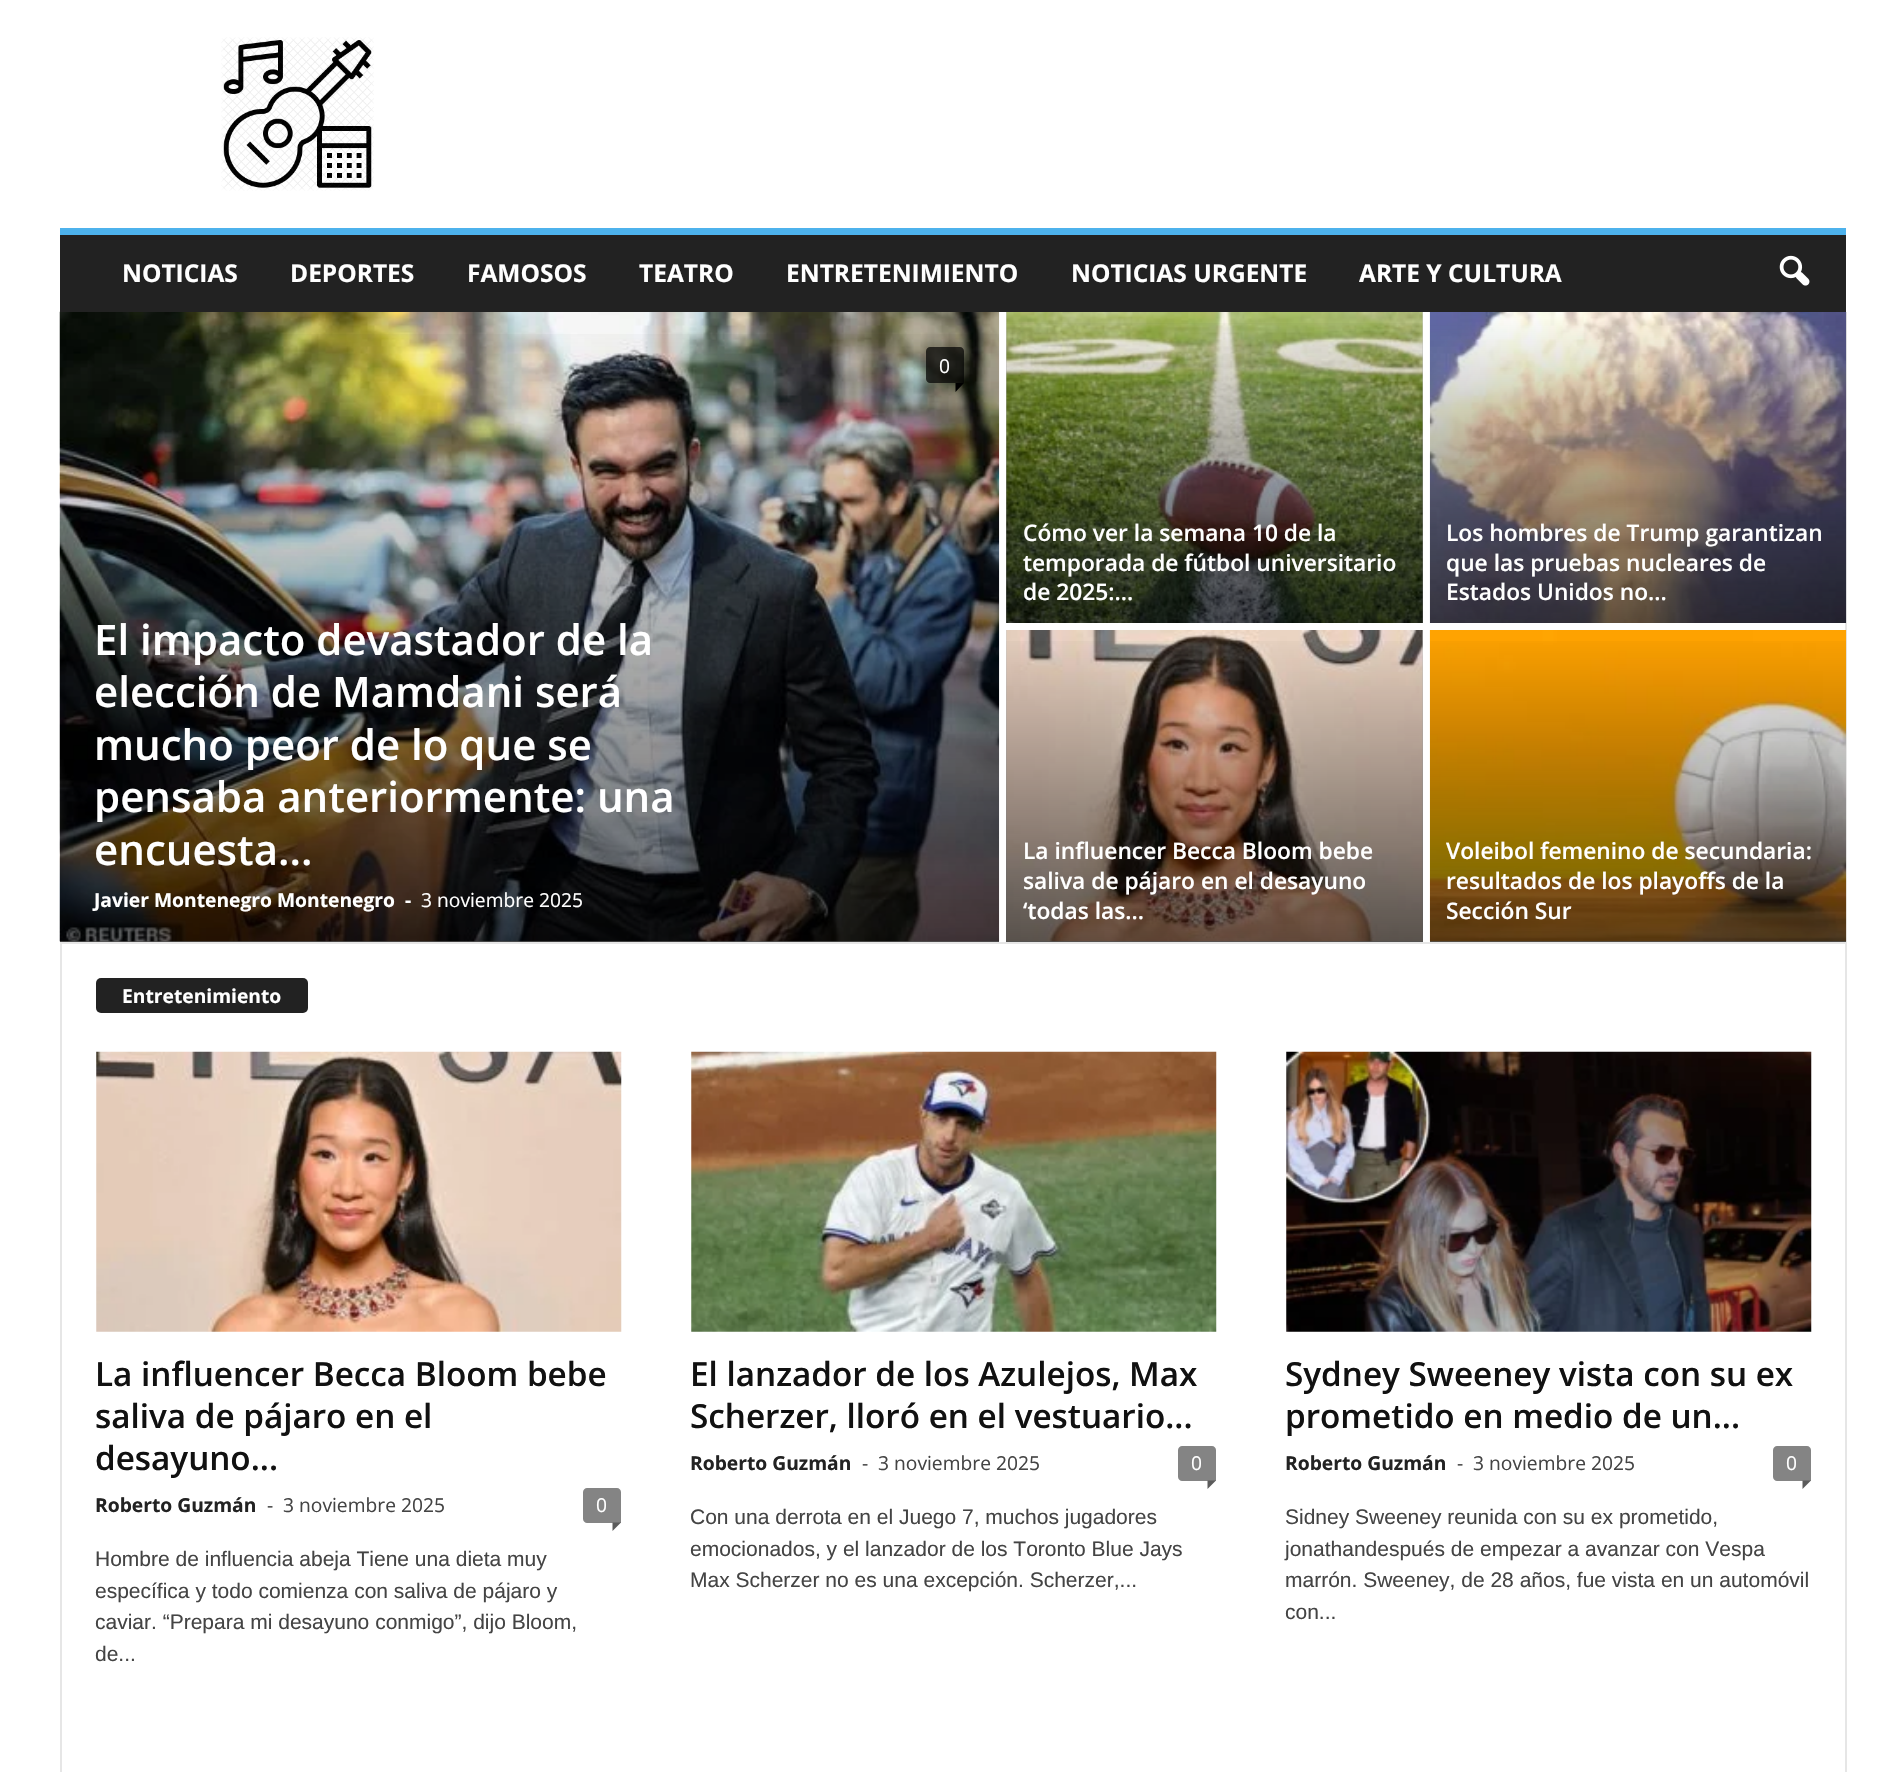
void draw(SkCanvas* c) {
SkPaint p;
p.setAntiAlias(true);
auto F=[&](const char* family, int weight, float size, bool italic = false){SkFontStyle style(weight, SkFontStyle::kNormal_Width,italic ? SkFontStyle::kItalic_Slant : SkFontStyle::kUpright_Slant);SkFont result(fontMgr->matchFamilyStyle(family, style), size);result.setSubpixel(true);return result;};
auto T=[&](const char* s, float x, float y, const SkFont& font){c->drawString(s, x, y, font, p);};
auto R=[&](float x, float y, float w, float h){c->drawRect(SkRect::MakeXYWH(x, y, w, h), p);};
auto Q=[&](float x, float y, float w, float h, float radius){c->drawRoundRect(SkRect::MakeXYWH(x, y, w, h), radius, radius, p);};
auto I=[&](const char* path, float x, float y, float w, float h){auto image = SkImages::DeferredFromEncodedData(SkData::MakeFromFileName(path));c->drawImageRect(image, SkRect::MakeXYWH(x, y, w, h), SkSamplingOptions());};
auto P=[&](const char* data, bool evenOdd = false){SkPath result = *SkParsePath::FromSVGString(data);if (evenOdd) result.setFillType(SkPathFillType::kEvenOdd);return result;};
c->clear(0xffffffff);
I("1.png",221,37,153,154);
p.setColor(0xffcccccc);
R(60,941,939,1);
I("3.png",59,311,941,631);
p.setColor(0xff222222);
R(60,235,1786,77);
p.setColor(0xff4db2ec);
R(60,228,1786,7);
auto f1 = F("Open Sans",700,24.5);
p.setColor(0xffffffff);
T("NOTICIAS",122,282,f1);
T("DEPORTES",290,282,f1);
T("FAMOSOS",467,282,f1);
T("TEATRO",639,282,f1);
T("ENTRETENIMIENTO",786,282,f1);
T("NOTICIAS URGENTE",1071,282,f1);
T("ARTE Y CULTURA",1359,282,f1);
I("2.png",1779,255,31,31);
p.setColor(0xffe6e6e6);
R(60,942,2,830);
{
const SkColor colors[] = {0x00000000,0x99000000};
const float stops[] = {0,1};
const SkPoint ends[] = {{529,311}, {529,942}};
p.setShader(SkGradientShader::MakeLinear(ends, colors, stops, 2, SkTileMode::kClamp));
p.setAlpha(255);
}
R(60,334,939,608);
p.setShader(nullptr);
p.setColor(0xb3000000);
c->drawPath(P("M930 347h30c2 0 4 2 4 4v32h-34c-2 0-4-2-4-4v-28c0-2 2-4 4-4z"),p);
auto f2 = F("Open Sans",400,19.25);
p.setColor(0xffffffff);
T("0",939,373,f2);
p.setColor(0xff000000);
c->drawPath(P("M955.5 383h8.5l-8.5 9z"),p);
auto f3 = F("Open Sans",600,42);
p.setColor(0xffffffff);
T("El impacto devastador de la",94,655,f3);
T("elección de Mamdani será",94,707,f3);
T("mucho peor de lo que se",94,760,f3);
T("pensaba anteriormente: una",94,812,f3);
T("encuesta...",94,865,f3);
auto f4 = F("Open Sans",700,19.25);
T("Javier Montenegro Montenegro",94,907,f4);
T("-",405,907,f4);
T("3 noviembre 2025",421,907,f2);
p.setColor(0xffcccccc);
R(1006,312,417,311);
I("4.png",1006,312,417,311);
{
const SkColor colors[] = {0x00000000,0x99000000};
const float stops[] = {0,1};
const SkPoint ends[] = {{1215,312}, {1215,623}};
p.setShader(SkGradientShader::MakeLinear(ends, colors, stops, 2, SkTileMode::kClamp));
p.setAlpha(255);
}
R(1006,323,417,300);
auto f5 = F("Open Sans",600,22.75);
p.setShader(nullptr);
p.setColor(0xffffffff);
T("Cómo ver la semana 10 de la",1023,541,f5);
T("temporada de fútbol universitario",1023,571,f5);
T("de 2025:...",1023,600,f5);
p.setColor(0xffe6e6e6);
R(1845,312,2,1460);
I("5.png",1429,312,418,311);
p.setColor(0xffffffff);
T("Los hombres de Trump garantizan",1446,541,f5);
T("que las pruebas nucleares de",1446,571,f5);
T("Estados Unidos no...",1446,600,f5);
p.setColor(0xffcccccc);
R(1006,630,417,312);
I("6.png",1006,630,417,312);
{
const SkColor colors[] = {0x00000000,0x99000000};
const float stops[] = {0,1};
const SkPoint ends[] = {{1215,630}, {1215,942}};
p.setShader(SkGradientShader::MakeLinear(ends, colors, stops, 2, SkTileMode::kClamp));
p.setAlpha(255);
}
R(1006,641,417,301);
p.setShader(nullptr);
p.setColor(0xffffffff);
T("La influencer Becca Bloom bebe",1023,859,f5);
T("saliva de pájaro en el desayuno",1023,889,f5);
T("‘todas las...",1023,919,f5);
p.setColor(0xffcccccc);
R(1430,941,416,1);
I("7.png",1429,630,418,312);
{
const SkColor colors[] = {0x00000000,0x99000000};
const float stops[] = {0,1};
const SkPoint ends[] = {{1638,630}, {1638,942}};
p.setShader(SkGradientShader::MakeLinear(ends, colors, stops, 2, SkTileMode::kClamp));
p.setAlpha(255);
}
R(1430,641,416,301);
p.setShader(nullptr);
p.setColor(0xffffffff);
T("Voleibol femenino de secundaria:",1446,859,f5);
T("resultados de los playoffs de la",1446,889,f5);
T("Sección Sur",1446,919,f5);
p.setColor(0xffe6e6e6);
R(61,942,1784,2);
p.setColor(0xff222222);
Q(96,978,212,35,5);
p.setColor(0xffffffff);
T("Entretenimiento",122,1003,f4);
I("8.png",96,1051,526,281);
auto f6 = F("Open Sans",600,33.25);
p.setColor(0xff111111);
T("La influencer Becca Bloom bebe",95,1386,f6);
T("saliva de pájaro en el",95,1428,f6);
T("desayuno...",95,1470,f6);
p.setColor(0xff222222);
T("Roberto Guzmán",95,1512,f4);
p.setColor(0xff444444);
T("-",267,1512,f2);
T("3 noviembre 2025",283,1512,f2);
p.setColor(0xff848484);
c->drawPath(P("M587 1488h30c2 0 4 2 4 4v31h-34c-2 0-4-2-4-4v-27c0-2 2-4 4-4z"),p);
p.setColor(0xffffffff);
T("0",596,1512,f2);
p.setColor(0xff5b5b5b);
c->drawPath(P("M612.5 1522.5h8.5l-8.5 8.5z"),p);
auto f7 = F("Liberation Sans",400,21);
p.setColor(0xff444444);
T("Hombre de influencia abeja Tiene una dieta muy",95,1566,f7);
T("específica y todo comienza con saliva de pájaro y",95,1598,f7);
T("caviar. “Prepara mi desayuno conmigo”, dijo Bloom,",95,1629,f7);
T("de...",95,1661,f7);
I("9.png",691,1051,526,281);
p.setColor(0xff111111);
T("El lanzador de los Azulejos, Max",690,1386,f6);
T("Scherzer, lloró en el vestuario...",690,1428,f6);
p.setColor(0xff222222);
T("Roberto Guzmán",690,1470,f4);
p.setColor(0xff444444);
T("-",862,1470,f2);
T("3 noviembre 2025",878,1470,f2);
p.setColor(0xff848484);
c->drawPath(P("M1182 1446h30c2 0 4 2 4 4v31h-34c-2 0-4-2-4-4v-27c0-2 2-4 4-4z"),p);
p.setColor(0xffffffff);
T("0",1191,1470,f2);
p.setColor(0xff5b5b5b);
c->drawPath(P("M1207.5 1480.5h8.5l-8.5 8.5z"),p);
p.setColor(0xff444444);
T("Con una derrota en el Juego 7, muchos jugadores",690,1524,f7);
T("emocionados, y el lanzador de los Toronto Blue Jays",690,1556,f7);
T("Max Scherzer no es una excepción. Scherzer,...",690,1587,f7);
I("10.png",1286,1051,526,281);
p.setColor(0xff111111);
T("Sydney Sweeney vista con su ex",1285,1386,f6);
T("prometido en medio de un...",1285,1428,f6);
p.setColor(0xff222222);
T("Roberto Guzmán",1285,1470,f4);
p.setColor(0xff444444);
T("-",1457,1470,f2);
T("3 noviembre 2025",1473,1470,f2);
p.setColor(0xff848484);
c->drawPath(P("M1777 1446h30c2 0 4 2 4 4v31h-34c-2 0-4-2-4-4v-27c0-2 2-4 4-4z"),p);
p.setColor(0xffffffff);
T("0",1786,1470,f2);
p.setColor(0xff5b5b5b);
c->drawPath(P("M1802.5 1480.5h8.5l-8.5 8.5z"),p);
p.setColor(0xff444444);
T("Sidney Sweeney reunida con su ex prometido,",1285,1524,f7);
T("jonathandespués de empezar a avanzar con Vespa",1285,1556,f7);
T("marrón. Sweeney, de 28 años, fue vista en un automóvil",1285,1587,f7);
T("con...",1285,1619,f7);
}
